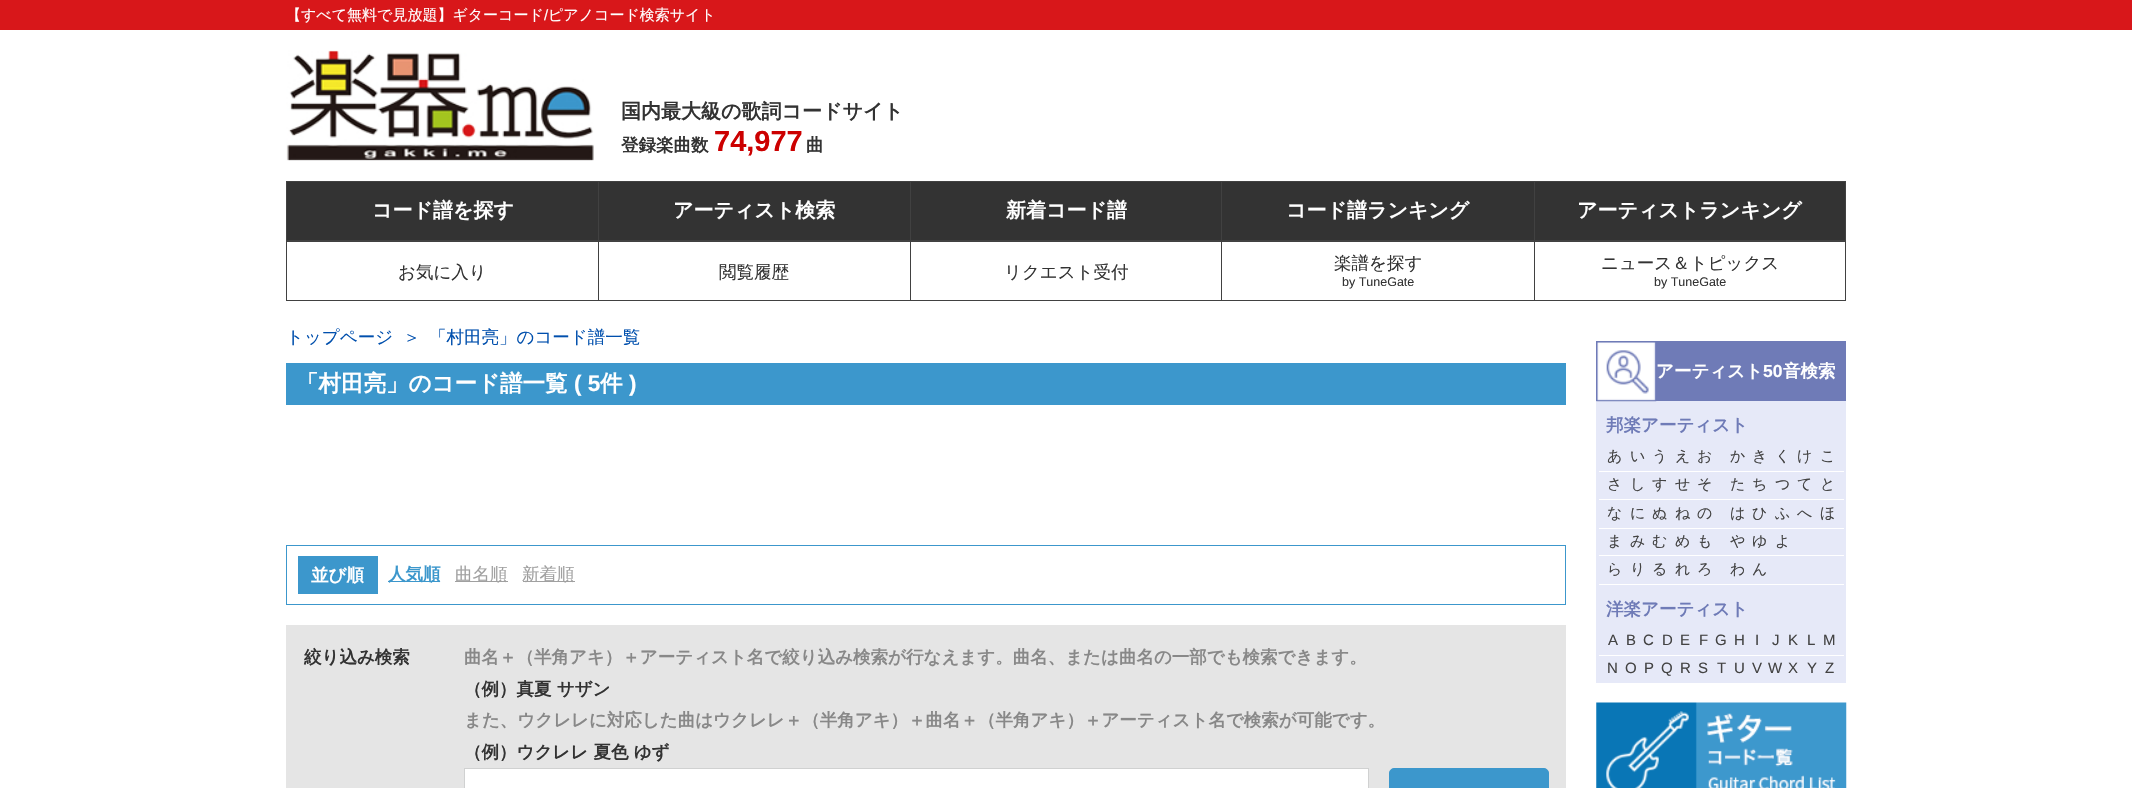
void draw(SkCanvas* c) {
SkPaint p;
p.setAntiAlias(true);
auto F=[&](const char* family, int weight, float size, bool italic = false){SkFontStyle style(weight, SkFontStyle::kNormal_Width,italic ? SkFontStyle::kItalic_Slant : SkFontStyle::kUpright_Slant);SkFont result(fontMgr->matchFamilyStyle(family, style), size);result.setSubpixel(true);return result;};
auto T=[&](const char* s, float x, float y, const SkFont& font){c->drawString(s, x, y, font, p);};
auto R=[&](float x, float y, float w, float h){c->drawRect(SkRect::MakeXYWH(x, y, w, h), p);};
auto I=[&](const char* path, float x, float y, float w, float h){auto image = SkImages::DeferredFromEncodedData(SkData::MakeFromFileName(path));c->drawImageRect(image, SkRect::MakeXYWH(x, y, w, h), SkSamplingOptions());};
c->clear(0xffffffff);
p.setColor(0xffd8171a);
R(0,0,2132,30);
auto f1 = F("WenQuanYi Zen Hei",500,15);
p.setColor(0xffffffff);
T("【すべて無料で見放題】ギターコード",286,20,f1);
auto f2 = F("Liberation Sans",400,15);
T("/",544,20,f2);
T("ピアノコード検索サイト",548,20,f1);
I("1.png",286,50,308,111);
auto f3 = F("WenQuanYi Zen Hei",700,20);
p.setColor(0xff333333);
T("国内最大級の歌詞コードサイト",621,118,f3);
auto f4 = F("WenQuanYi Zen Hei",700,17.5);
T("登録楽曲数",621,151,f4);
auto f5 = F("Liberation Sans",700,29);
p.setColor(0xffcc0000);
T("74,977",714,151,f5);
p.setColor(0xff333333);
T("曲",806,151,f4);
R(287,182,1558,58);
p.setColor(0xff414141);
R(1534,181,312,1);
R(1845,181,1,60);
R(1534,240,312,2);
R(1534,181,1,60);
R(1221,181,314,1);
R(1221,240,314,1);
R(1221,181,1,60);
R(910,181,313,1);
R(910,240,313,1);
R(910,181,1,60);
R(598,181,313,1);
R(598,240,313,1);
R(598,181,1,60);
R(286,181,313,1);
R(286,240,313,1);
R(286,181,1,60);
p.setColor(0xffffffff);
T("コード譜を探す",372,217,f3);
T("アーティスト検索",673,217,f3);
T("新着コード譜",1006,217,f3);
T("コード譜ランキング",1286,217,f3);
T("アーティストランキング",1577,217,f3);
p.setColor(0xff414141);
R(1845,241,1,60);
R(1534,300,312,1);
R(1534,241,1,60);
R(1221,241,314,1);
R(1221,300,314,1);
R(1221,241,1,60);
R(910,241,313,1);
R(910,300,313,1);
R(910,241,1,60);
R(598,241,313,1);
R(598,300,313,1);
R(598,241,1,60);
R(286,241,313,1);
R(286,300,313,1);
R(286,241,1,60);
auto f6 = F("WenQuanYi Zen Hei",500,17.5);
p.setColor(0xff333333);
T("お気に入り",398,278,f6);
T("閲覧履歴",719,278,f6);
T("リクエスト受付",1004,278,f6);
T("楽譜を探す",1334,269,f6);
auto f7 = F("Liberation Sans",400,12.5);
T("by TuneGate",1342,286,f7);
T("ニュース＆トピックス",1601,269,f6);
T("by TuneGate",1654,286,f7);
p.setColor(0xff004fad);
T("トップページ",286,343,f6);
T("＞",403,343,f6);
T("「村田亮」のコード譜一覧",429,343,f6);
p.setColor(0xff3c97cc);
R(286,363,1280,42);
auto f8 = F("WenQuanYi Zen Hei",700,22.5);
p.setColor(0xffffffff);
T("「村田亮」のコード譜一覧",296,391,f8);
auto f9 = F("Liberation Sans",700,22.5);
T("( 5",574,391,f9);
T("件",600,391,f8);
T(")",629,391,f9);
p.setStroke(true);
p.setStrokeWidth(1);
p.setColor(0xff3c97cc);
c->drawRect(SkRect::MakeXYWH(286.5,545.5,1279,59),p);
p.setStroke(false);
R(298,556,80,38);
p.setColor(0xffffffff);
T("並び順",311,581,f4);
p.setColor(0xff3c97cc);
R(388,581,52,1);
T("人気順",388,580,f4);
p.setColor(0xffa0a0a0);
R(455,581,53,1);
T("曲名順",455,580,f6);
R(523,581,52,1);
T("新着順",522,580,f6);
p.setColor(0xffe5e5e5);
R(286,625,1280,163);
p.setColor(0xff333333);
T("絞り込み検索",304,663,f4);
p.setColor(0xff888888);
T("曲名＋（半角アキ）＋アーティスト名で絞り込み検索が行なえます。曲名、または曲名の一部でも検索できます。",464,663,f4);
p.setColor(0xff333333);
T("（例）真夏 サザン",464,695,f4);
p.setColor(0xff888888);
T("また、ウクレレに対応した曲はウクレレ＋（半角アキ）＋曲名＋（半角アキ）＋アーティスト名で検索が可能です。",464,726,f4);
p.setColor(0xff333333);
T("（例）ウクレレ 夏色 ゆず",464,758,f4);
p.setColor(0xffffffff);
c->drawRect(SkRect::MakeXYWH(464.5,768.5,904,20),p);
p.setStroke(true);
p.setColor(0xffd0d1d1);
c->drawRect(SkRect::MakeXYWH(464.5,768.5,904,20),p);
p.setStroke(false);
p.setColor(0xff3c97cc);
c->drawRoundRect(SkRect::MakeXYWH(1389.5,768.5,159,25),4.5,4.5,p);
p.setStroke(true);
c->drawRoundRect(SkRect::MakeXYWH(1389.5,768.5,159,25),4.5,4.5,p);
p.setStroke(false);
p.setColor(0xffe6e9f8);
R(1596,401,250,282);
p.setColor(0xff6f7bb7);
R(1596,341,250,60);
I("2.png",1596,342,61,60);
p.setColor(0xffffffff);
T("アーティスト",1656,377,f4);
auto f10 = F("Liberation Sans",700,17.5);
T("50",1763,377,f10);
T("音検索",1783,377,f4);
p.setColor(0xff6f7bb7);
T("邦楽アーティスト",1606,431,f4);
p.setColor(0xffffffff);
R(1599,471,245,1);
p.setColor(0xff434343);
T("あ",1607,461,f1);
T("い",1630,461,f1);
T("う",1652,461,f1);
T("え",1675,461,f1);
T("お",1697,461,f1);
T("か",1730,461,f1);
T("き",1752,461,f1);
T("く",1775,461,f1);
T("け",1797,461,f1);
T("こ",1820,461,f1);
p.setColor(0xffffffff);
R(1599,499,245,1);
p.setColor(0xff434343);
T("さ",1607,489,f1);
T("し",1630,489,f1);
T("す",1652,489,f1);
T("せ",1675,489,f1);
T("そ",1697,489,f1);
T("た",1730,489,f1);
T("ち",1752,489,f1);
T("つ",1775,489,f1);
T("て",1797,489,f1);
T("と",1820,489,f1);
p.setColor(0xffffffff);
R(1599,528,245,1);
p.setColor(0xff434343);
T("な",1607,518,f1);
T("に",1630,518,f1);
T("ぬ",1652,518,f1);
T("ね",1675,518,f1);
T("の",1697,518,f1);
T("は",1730,518,f1);
T("ひ",1752,518,f1);
T("ふ",1775,518,f1);
T("へ",1797,518,f1);
T("ほ",1820,518,f1);
p.setColor(0xffffffff);
R(1599,555,245,1);
p.setColor(0xff434343);
T("ま",1607,546,f1);
T("み",1630,546,f1);
T("む",1652,546,f1);
T("め",1675,546,f1);
T("も",1697,546,f1);
T("や",1730,546,f1);
T("ゆ",1752,546,f1);
T("よ",1775,546,f1);
p.setColor(0xffffffff);
R(1599,584,245,1);
p.setColor(0xff434343);
T("ら",1607,574,f1);
T("り",1630,574,f1);
T("る",1652,574,f1);
T("れ",1675,574,f1);
T("ろ",1697,574,f1);
T("わ",1730,574,f1);
T("ん",1752,574,f1);
p.setColor(0xff6f7bb7);
T("洋楽アーティスト",1606,615,f4);
p.setColor(0xffffffff);
R(1599,655,245,1);
p.setColor(0xff434343);
T("A",1608,645,f2);
T("B",1626,645,f2);
T("C",1643,645,f2);
T("D",1662,645,f2);
T("E",1680,645,f2);
T("F",1699,645,f2);
T("G",1715,645,f2);
T("H",1734,645,f2);
T("I",1755,645,f2);
T("J",1772,645,f2);
T("K",1788,645,f2);
T("L",1807,645,f2);
T("M",1823,645,f2);
T("N",1607,673,f2);
T("O",1625,673,f2);
T("P",1644,673,f2);
T("Q",1661,673,f2);
T("R",1680,673,f2);
T("S",1698,673,f2);
T("T",1717,673,f2);
T("U",1734,673,f2);
T("V",1752,673,f2);
T("W",1768,673,f2);
T("X",1788,673,f2);
T("Y",1807,673,f2);
T("Z",1825,673,f2);
I("3.png",1596,702,251,86);
}
